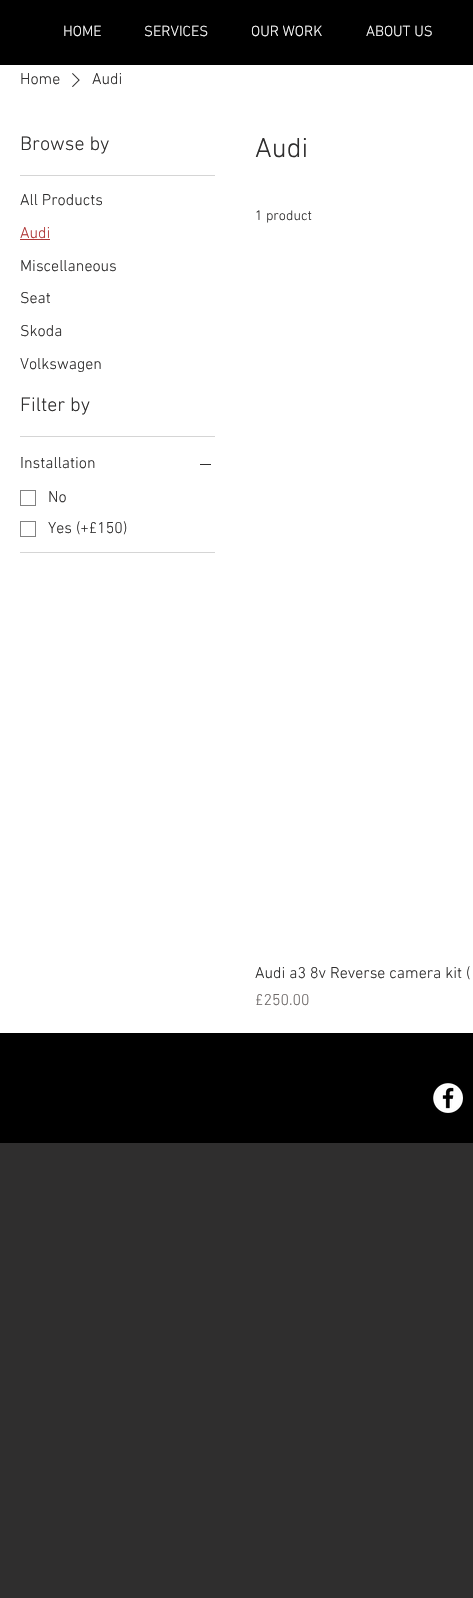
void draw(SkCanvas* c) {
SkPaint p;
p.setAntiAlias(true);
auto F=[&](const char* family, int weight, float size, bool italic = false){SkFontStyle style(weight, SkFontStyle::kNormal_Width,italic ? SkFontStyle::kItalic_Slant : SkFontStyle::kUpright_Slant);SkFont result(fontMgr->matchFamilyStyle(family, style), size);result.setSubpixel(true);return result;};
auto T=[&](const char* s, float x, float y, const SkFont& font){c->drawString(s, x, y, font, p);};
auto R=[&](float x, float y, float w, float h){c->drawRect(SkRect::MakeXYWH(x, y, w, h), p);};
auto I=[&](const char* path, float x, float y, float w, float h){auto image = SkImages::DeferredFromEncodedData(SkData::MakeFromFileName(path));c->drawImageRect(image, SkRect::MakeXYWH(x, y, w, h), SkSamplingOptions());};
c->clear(0xff2f2e2e);
p.setColor(0xff000000);
R(0,0,473,65);
auto f1 = F("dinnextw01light",300,15);
p.setColor(0xffffffff);
T("HOME",63,36,f1);
T("SERVICES",144,36,f1);
T("OUR WORK",251,36,f1);
T("ABOUT US",366,36,f1);
R(0,65,473,968);
auto f2 = F("dinnextw01light",300,16);
p.setColor(0xff2f2e2e);
T("Home",20,84,f2);
I("1.png",72,73,8,14);
T("Audi",92,84,f2);
p.setColor(0xffd5d5d5);
R(20,175,195,1);
auto f3 = F("dinnextw01light",300,20);
p.setColor(0xff2f2e2e);
T("Browse by",20,150,f3);
T("All Products",20,205,f2);
p.setColor(0xffb03737);
T("Audi",20,238,f2);
R(20,239,30,1);
p.setColor(0xff2f2e2e);
T("Miscellaneous",20,271,f2);
T("Seat",20,303,f2);
T("Skoda",20,336,f2);
T("Volkswagen",20,369,f2);
p.setColor(0xffd5d5d5);
R(20,436,195,1);
p.setColor(0xff2f2e2e);
T("Filter by",20,411,f3);
p.setColor(0xffd5d5d5);
R(20,552,195,1);
p.setColor(0xff2f2e2e);
T("Installation",20,468,f2);
R(200,464,11,1);
p.setStroke(true);
p.setStrokeWidth(1);
p.setColor(0xff828282);
c->drawRect(SkRect::MakeXYWH(20.5,490.5,15,15),p);
p.setStroke(false);
p.setColor(0xff2f2e2e);
T("No",48,502,f2);
p.setStroke(true);
p.setColor(0xff828282);
c->drawRect(SkRect::MakeXYWH(20.5,521.5,15,15),p);
p.setStroke(false);
p.setColor(0xff2f2e2e);
T("Yes (+£150)",48,533,f2);
auto f4 = F("dinnextw01light",300,28);
T("Audi",255,157,f4);
auto f5 = F("dinnextw01light",300,14);
T("1 product",255,220,f5);
T("Audi a3 8v Reverse camera kit (",255,978,f2);
p.setColor(0xff6e6968);
T("£250.00",255,1005,f2);
p.setColor(0xff000000);
R(0,1033,473,110);
I("2.png",433,1083,30,30);
}
